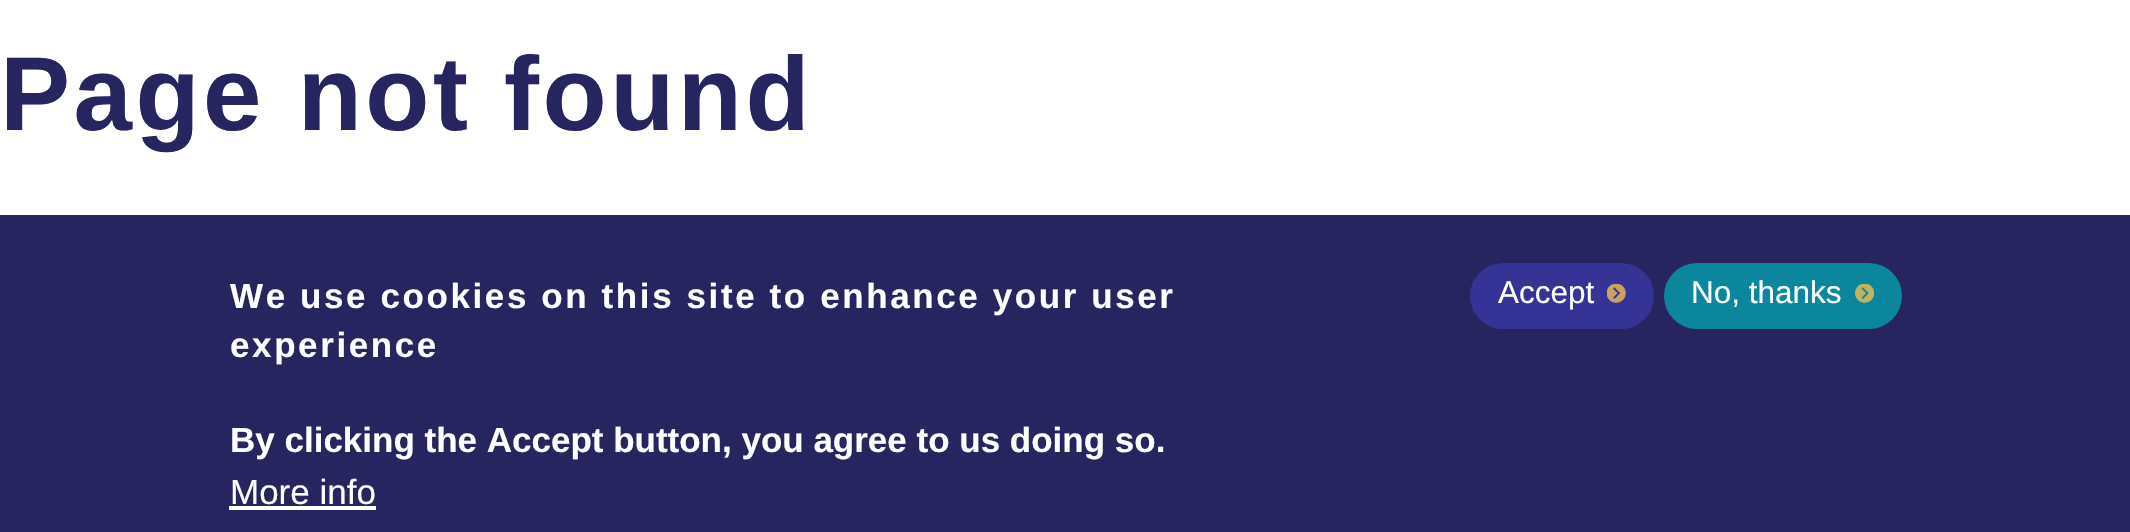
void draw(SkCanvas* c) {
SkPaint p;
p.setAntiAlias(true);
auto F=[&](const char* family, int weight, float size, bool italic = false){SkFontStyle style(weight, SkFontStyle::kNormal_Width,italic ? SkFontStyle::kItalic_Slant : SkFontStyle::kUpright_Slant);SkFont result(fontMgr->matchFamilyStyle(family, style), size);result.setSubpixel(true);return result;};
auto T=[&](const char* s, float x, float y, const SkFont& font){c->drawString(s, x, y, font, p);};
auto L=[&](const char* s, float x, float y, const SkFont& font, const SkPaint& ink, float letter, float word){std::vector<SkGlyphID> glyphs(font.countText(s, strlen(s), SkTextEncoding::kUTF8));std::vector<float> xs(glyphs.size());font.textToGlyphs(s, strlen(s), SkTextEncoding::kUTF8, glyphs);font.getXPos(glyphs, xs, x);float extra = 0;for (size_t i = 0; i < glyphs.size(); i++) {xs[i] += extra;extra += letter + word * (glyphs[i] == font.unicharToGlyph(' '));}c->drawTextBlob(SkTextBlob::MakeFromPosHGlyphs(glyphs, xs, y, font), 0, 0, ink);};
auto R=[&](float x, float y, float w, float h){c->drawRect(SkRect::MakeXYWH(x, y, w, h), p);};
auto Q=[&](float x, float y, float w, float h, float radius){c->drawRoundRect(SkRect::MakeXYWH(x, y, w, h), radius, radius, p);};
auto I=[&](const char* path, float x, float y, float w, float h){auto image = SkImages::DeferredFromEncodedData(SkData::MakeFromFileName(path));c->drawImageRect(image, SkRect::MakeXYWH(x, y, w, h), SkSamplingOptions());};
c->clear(0xffffffff);
auto f1 = F("Liberation Sans",700,105);
p.setColor(0xff27255f);
L("Page not found",0,130,f1,p,3.5,0);
R(0,215,2130,317);
auto f2 = F("Liberation Sans",700,35);
p.setColor(0xffffffff);
L("We use cookies on this site to enhance your user",230,308,f2,p,2.6,0);
L("experience",230,357,f2,p,2.6,0);
T("By clicking the Accept button, you agree to us doing so.",230,452,f2);
auto f3 = F("Liberation Sans",400,35);
T("More info",230,504,f3);
R(229,506,147,4);
p.setColor(0xff363397);
Q(1470,263,184,66,33);
auto f4 = F("Liberation Sans",400,31.5);
p.setColor(0xffffffff);
T("Accept",1498,303,f4);
I("1.png",1607,284,19,19);
p.setColor(0xff0c869c);
Q(1664,263,238,66,33);
p.setColor(0xffffffff);
T("No, thanks",1691,303,f4);
I("2.png",1855,284,19,19);
}
